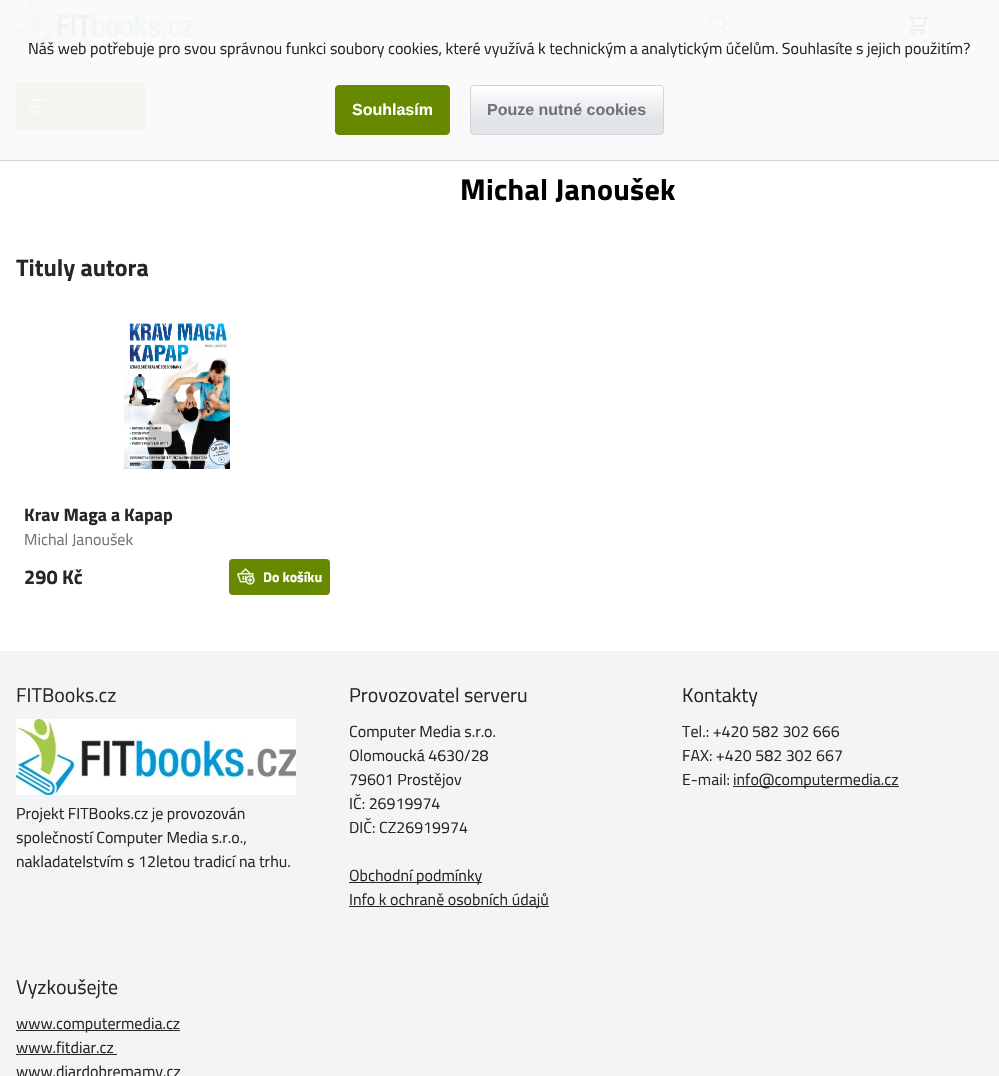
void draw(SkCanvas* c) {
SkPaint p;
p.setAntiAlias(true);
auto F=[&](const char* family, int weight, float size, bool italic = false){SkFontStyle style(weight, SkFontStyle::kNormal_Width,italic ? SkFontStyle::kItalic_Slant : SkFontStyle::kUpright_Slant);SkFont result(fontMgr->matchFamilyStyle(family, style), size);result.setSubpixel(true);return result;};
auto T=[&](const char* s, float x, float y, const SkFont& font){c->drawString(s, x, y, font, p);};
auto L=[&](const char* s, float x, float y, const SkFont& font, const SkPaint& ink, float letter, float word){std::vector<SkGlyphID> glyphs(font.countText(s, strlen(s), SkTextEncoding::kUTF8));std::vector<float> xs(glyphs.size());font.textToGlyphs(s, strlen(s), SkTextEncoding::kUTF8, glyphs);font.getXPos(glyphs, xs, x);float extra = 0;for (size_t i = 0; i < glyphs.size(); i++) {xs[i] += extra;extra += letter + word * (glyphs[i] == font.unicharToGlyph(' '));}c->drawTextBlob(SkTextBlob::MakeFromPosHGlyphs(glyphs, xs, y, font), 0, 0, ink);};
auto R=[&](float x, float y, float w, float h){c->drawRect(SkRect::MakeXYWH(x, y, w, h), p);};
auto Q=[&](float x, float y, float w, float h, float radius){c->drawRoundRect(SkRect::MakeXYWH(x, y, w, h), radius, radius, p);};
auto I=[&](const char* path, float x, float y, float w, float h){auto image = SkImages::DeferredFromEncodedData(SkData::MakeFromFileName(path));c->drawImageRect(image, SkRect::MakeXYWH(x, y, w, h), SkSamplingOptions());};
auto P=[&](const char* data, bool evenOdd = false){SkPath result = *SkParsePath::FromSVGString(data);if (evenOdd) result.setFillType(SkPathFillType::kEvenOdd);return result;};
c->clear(0xfff3f4f6);
p.setColor(0xfffafafa);
R(0,0,999,160);
I("1.png",16,1,177,48);
p.setStroke(true);
p.setStrokeWidth(2);
p.setStrokeCap(SkPaint::kRound_Cap);
p.setStrokeJoin(SkPaint::kRound_Join);
p.setColor(0xfff5f5f5);
c->drawPath(P("M729 34l-6-6m2-5c0 9-14 9-14 0c0-9 14-9 14 0z"),p);
I("2.png",908,15,20,20);
p.setStroke(false);
p.setColor(0xffd1d5db);
R(0,160,999,1);
auto f1 = F("Titillium Web",400,16);
p.setColor(0xff27272a);
T("Náš web potřebuje pro svou správnou funkci soubory cookies, které využívá k technickým a analytickým účelům. Souhlasíte s jejich použitím?",28,54,f1);
p.setColor(0xff678900);
c->drawRoundRect(SkRect::MakeXYWH(335.5,85.5,114,49),3.5,3.5,p);
p.setStroke(true);
p.setStrokeWidth(1);
p.setStrokeCap(SkPaint::kButt_Cap);
p.setStrokeJoin(SkPaint::kMiter_Join);
c->drawRoundRect(SkRect::MakeXYWH(335.5,85.5,114,49),3.5,3.5,p);
auto f2 = F("Liberation Sans",700,16);
p.setStroke(false);
p.setColor(0xffffffff);
T("Souhlasím",352,115,f2);
c->save();
c->clipPath(P("M474 85h186c2 0 4 2 4 4v42c0 2-2 4-4 4h-186c-2 0-4-2-4-4v-42c0-2 2-4 4-4z"),true);
{
const SkColor colors[] = {0xffffffff,0xffe2e5e7};
const float stops[] = {0,.7};
const SkPoint ends[] = {{567,86}, {567,134}};
p.setShader(SkGradientShader::MakeLinear(ends, colors, stops, 2, SkTileMode::kClamp));
p.setAlpha(255);
}
R(470,86,194,48);
c->restore();
p.setStroke(true);
p.setShader(nullptr);
p.setColor(0xffd1d5db);
c->drawRoundRect(SkRect::MakeXYWH(470.5,85.5,193,49),3.5,3.5,p);
p.setStroke(false);
p.setColor(0xff71717a);
T("Pouze nutné cookies",487,115,f2);
p.setColor(0xfff4f5f0);
Q(16,82,129,48,4);
p.setStroke(true);
p.setStrokeWidth(2);
p.setStrokeCap(SkPaint::kRound_Cap);
p.setStrokeJoin(SkPaint::kRound_Join);
p.setColor(0xfffafafa);
c->drawPath(P("M30 100h16m-16 6h8m-8 6h16"),p);
p.setStroke(false);
p.setColor(0xffffffff);
R(0,161,999,490);
auto f3 = F("Titillium Web",700,30);
p.setColor(0xff000000);
L("Michal Janoušek",460,200,f3,p,.25,0);
auto f4 = F("Titillium Web",700,24);
p.setColor(0xff27272a);
T("Tituly autora",16,276,f4);
I("3.png",124,323,106,146);
auto f5 = F("Titillium Web",700,18);
T("Krav Maga a Kapap",24,521,f5);
p.setColor(0xff71717a);
T("Michal Janoušek",24,545,f1);
auto f6 = F("Titillium Web",700,20);
p.setColor(0xff27272a);
T("290 Kč",24,584,f6);
p.setColor(0xff678900);
Q(229,559,101,36,4);
I("4.png",237,568,18,17);
auto f7 = F("Titillium Web",700,14);
p.setColor(0xffffffff);
T("Do košíku",263,582,f7);
auto f8 = F("Titillium Web",400,20);
p.setColor(0xff27272a);
T("FITBooks.cz",16,702,f8);
I("5.png",16,719,280,76);
T("Projekt FITBooks.cz je provozován",16,819,f1);
T("společností Computer Media s.r.o.,",16,843,f1);
T("nakladatelstvím s 12letou tradicí na trhu.",16,867,f1);
T("Provozovatel serveru",349,702,f8);
T("Computer Media s.r.o.",349,737,f1);
T("Olomoucká 4630/28",349,761,f1);
T("79601 Prostějov",349,785,f1);
T("IČ: 26919974",349,809,f1);
T("DIČ: CZ26919974",349,833,f1);
R(349,882,133,1);
T("Obchodní podmínky",349,881,f1);
R(349,906,200,1);
T("Info k ochraně osobních údajů",349,905,f1);
T("Kontakty",682,702,f8);
T("Tel.: +420 582 302 666",682,737,f1);
T("FAX: +420 582 302 667",682,761,f1);
T("E-mail:",682,785,f1);
R(733,786,166,1);
T("info@computermedia.cz",733,785,f1);
T("Vyzkoušejte",16,994,f8);
R(16,1030,164,1);
T("www.computermedia.cz",16,1029,f1);
T("www.fitdiar.cz",16,1053,f1);
R(16,1054,101,1);
T("www.diardobremamy.cz",16,1077,f1);
}
